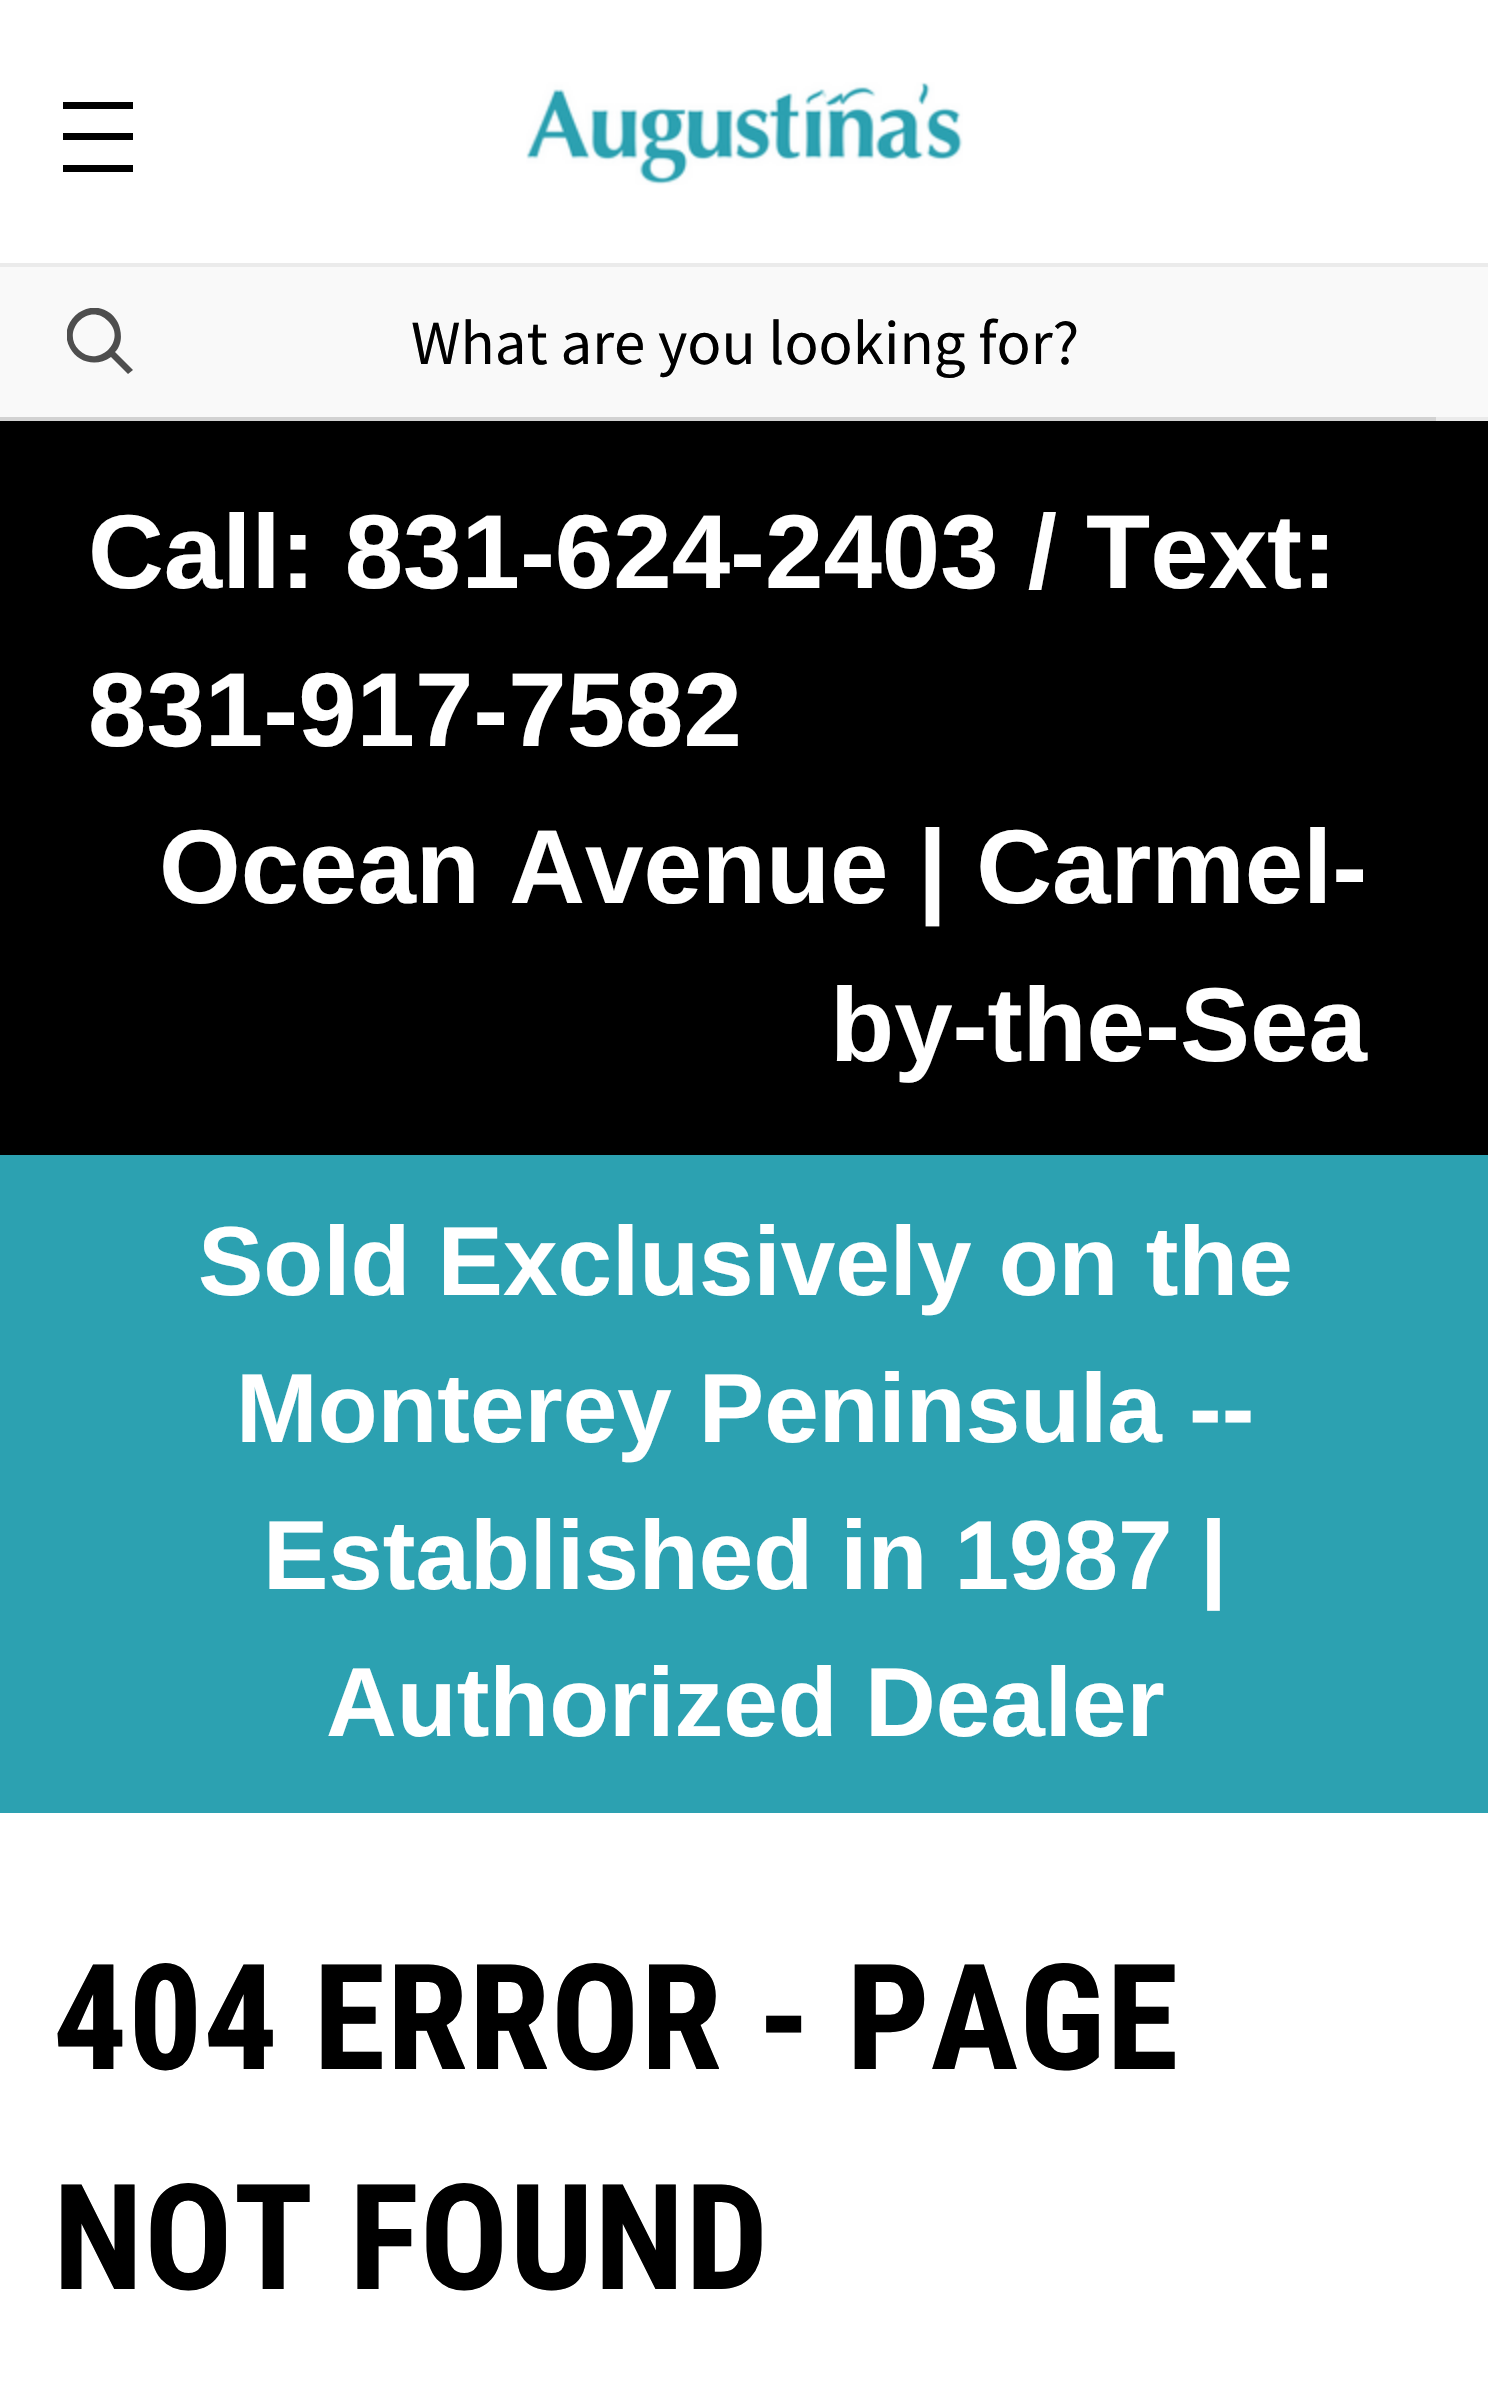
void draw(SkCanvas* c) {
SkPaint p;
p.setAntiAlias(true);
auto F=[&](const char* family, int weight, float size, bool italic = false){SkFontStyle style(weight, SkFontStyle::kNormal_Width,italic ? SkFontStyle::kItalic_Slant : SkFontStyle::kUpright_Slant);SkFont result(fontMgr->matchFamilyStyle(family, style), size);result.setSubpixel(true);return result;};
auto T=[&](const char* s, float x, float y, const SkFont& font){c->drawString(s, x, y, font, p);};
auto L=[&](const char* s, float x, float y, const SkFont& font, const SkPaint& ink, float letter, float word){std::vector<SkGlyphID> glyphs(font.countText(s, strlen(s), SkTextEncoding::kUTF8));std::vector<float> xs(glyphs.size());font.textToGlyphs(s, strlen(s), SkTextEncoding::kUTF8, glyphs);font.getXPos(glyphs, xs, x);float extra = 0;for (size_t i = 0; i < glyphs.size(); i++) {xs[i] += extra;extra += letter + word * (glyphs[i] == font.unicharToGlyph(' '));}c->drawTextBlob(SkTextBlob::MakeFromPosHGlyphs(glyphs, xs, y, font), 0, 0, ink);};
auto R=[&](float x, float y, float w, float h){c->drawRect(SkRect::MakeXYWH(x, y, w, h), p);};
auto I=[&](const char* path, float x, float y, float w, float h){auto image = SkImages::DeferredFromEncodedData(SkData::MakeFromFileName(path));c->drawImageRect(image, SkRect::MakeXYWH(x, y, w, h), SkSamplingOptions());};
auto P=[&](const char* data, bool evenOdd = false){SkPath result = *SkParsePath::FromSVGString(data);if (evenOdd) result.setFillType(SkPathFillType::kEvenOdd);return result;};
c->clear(0xffffffff);
p.setColor(0xffebebeb);
R(1436,417,52,4);
p.setColor(0xff000000);
R(63,133,70,7);
R(63,102,70,7);
R(63,165,70,7);
I("1.png",526,82,437,103);
p.setColor(0xfff9f9f9);
R(0,267,1488,150);
c->save();
c->clipRect(SkRect::MakeXYWH(67,308,66,67));
p.setColor(0xff4e4e4e);
c->drawPath(P("M133 370l-5 4l-17-17c-14 10-33 6-41-9c-14-25 17-52 40-35c5 4 9 10 10 16c2 8 1 17-5 23zm-54-20c19 19 49-10 29-29c-19-20-48 10-29 29z",true),p);
c->restore();
p.setColor(0xffebebeb);
R(0,263,1488,4);
auto f1 = F("Source Sans Pro",400,63);
p.setColor(0xff000000);
T("What are you looking for?",411,364,f1);
p.setColor(0xffd2d2d2);
R(0,417,1436,4);
p.setColor(0xff000000);
R(0,421,1488,734);
auto f2 = F("Liberation Sans",700,105);
p.setColor(0xffffffff);
T("Call: 831-624-2403 / Text:",88,588,f2);
T("831-917-7582",88,746,f2);
T("Ocean Avenue | Carmel-",159,903,f2);
T("by-the-Sea",830,1061,f2);
p.setColor(0xff2ca1b1);
R(0,1155,1488,658);
auto f3 = F("Liberation Sans",700,98);
p.setColor(0xffffffff);
T("Sold Exclusively on the",198,1295,f3);
T("Monterey Peninsula --",236,1442,f3);
T("Established in 1987 |",263,1589,f3);
T("Authorized Dealer",326,1736,f3);
auto f4 = F("Roboto Condensed",700,147);
p.setColor(0xff000000);
L("404 ERROR - PAGE",53,2069,f4,p,.9,0);
L("NOT FOUND",53,2289,f4,p,.9,0);
}
